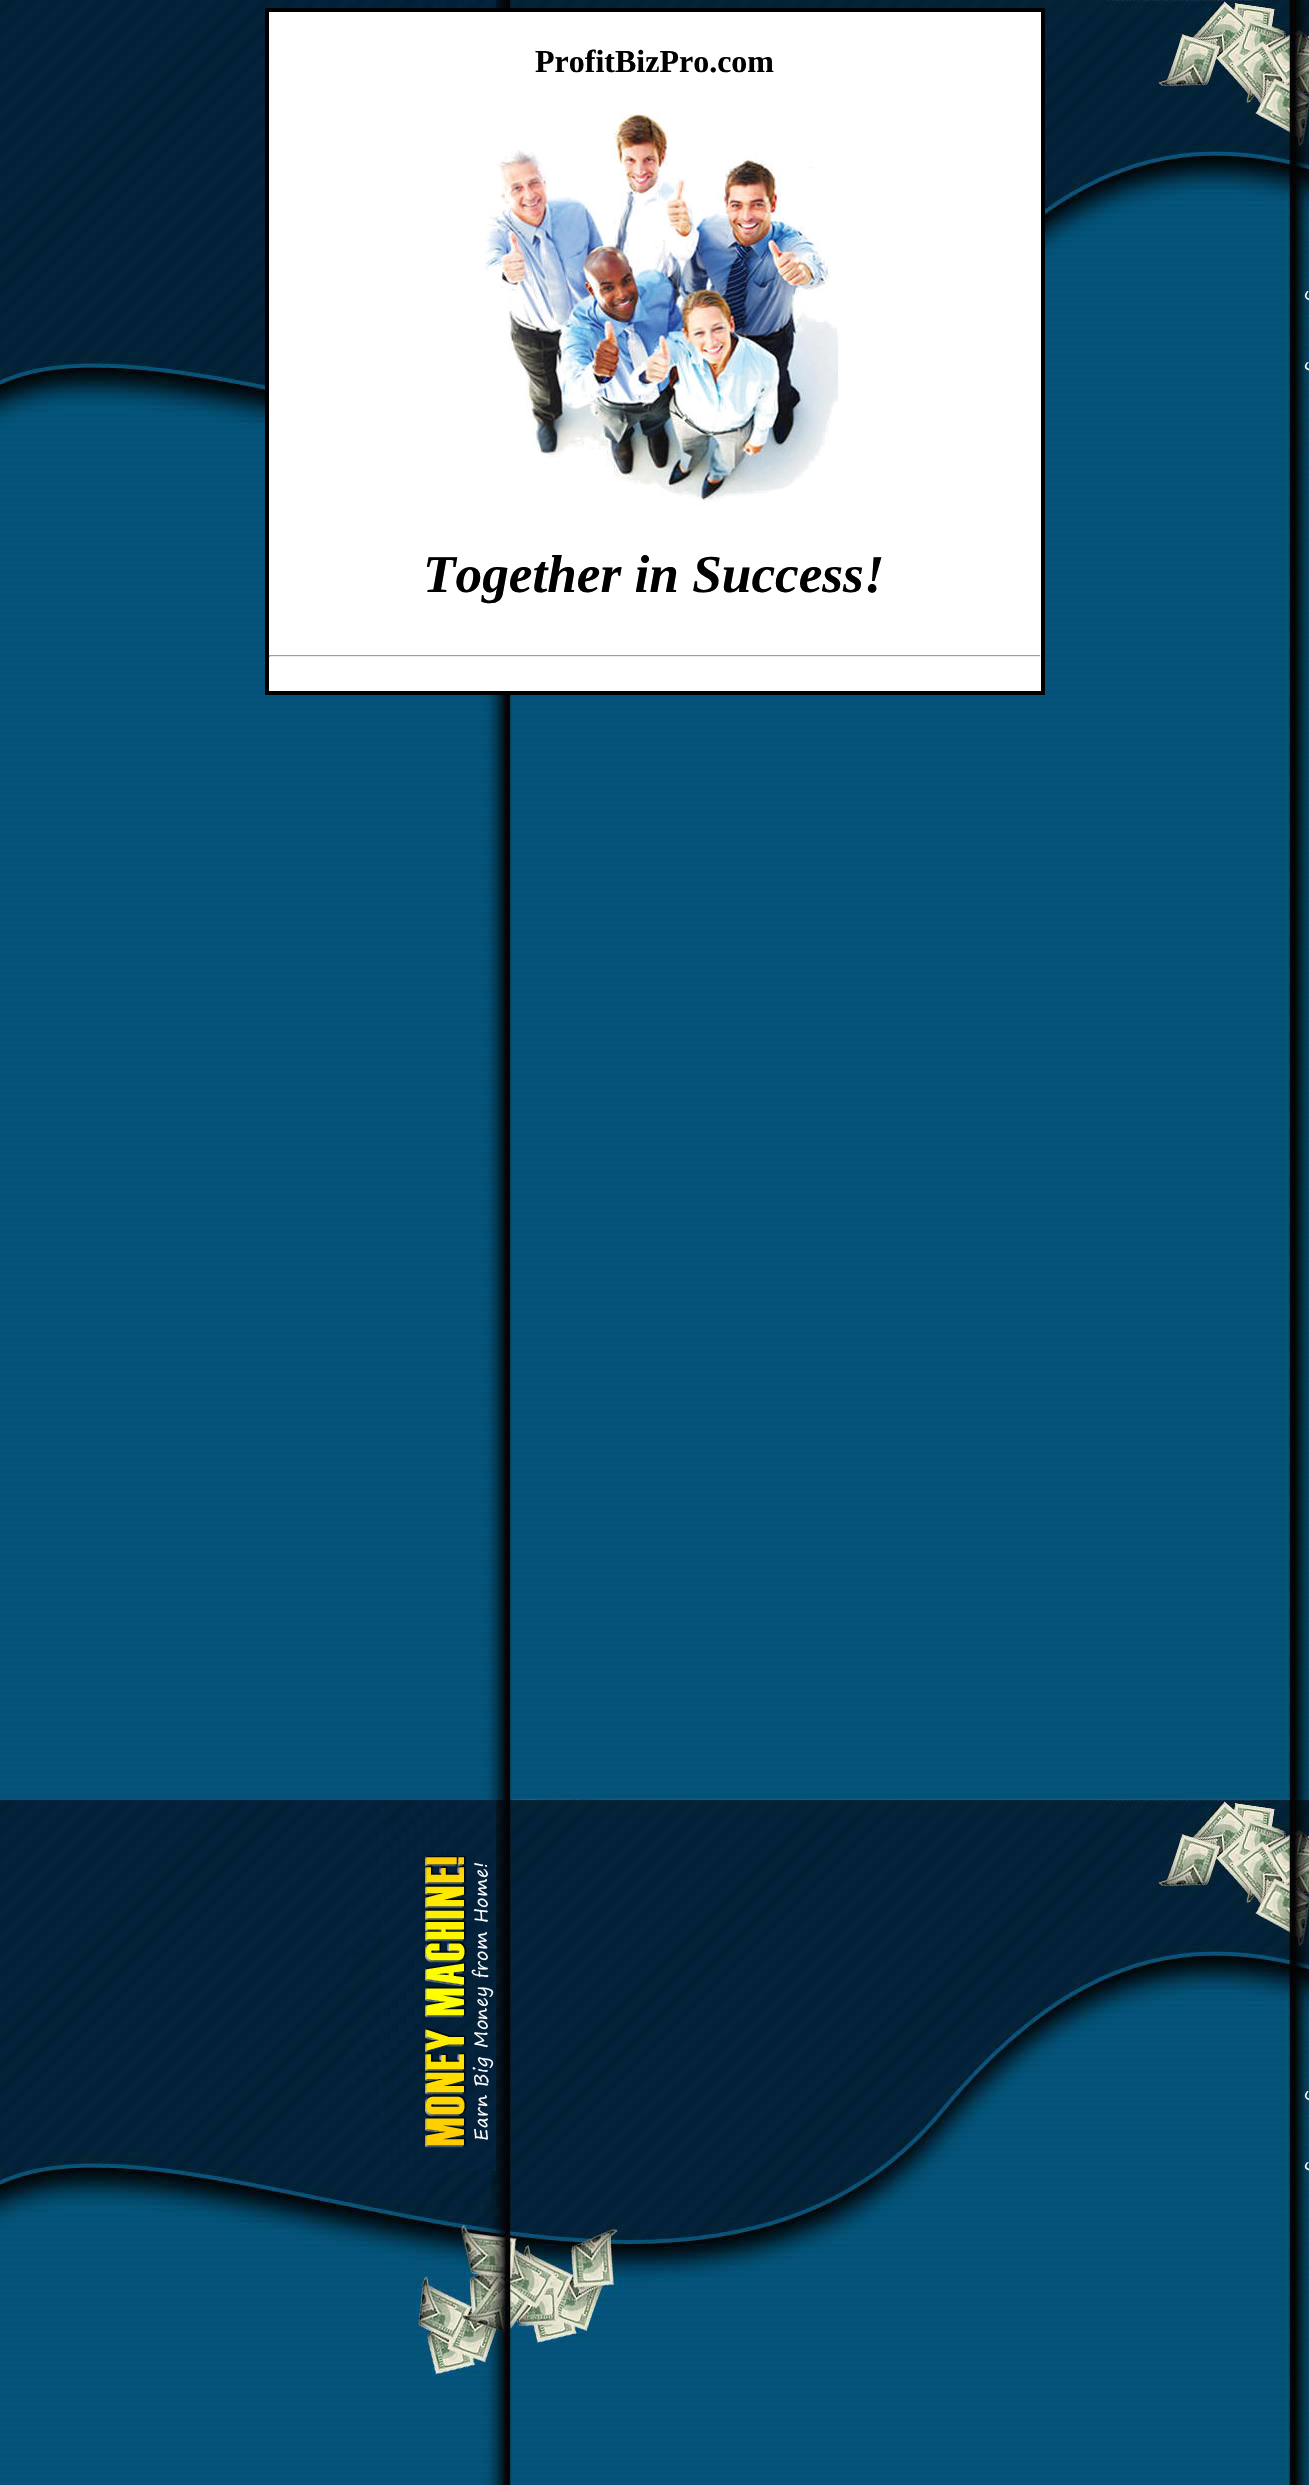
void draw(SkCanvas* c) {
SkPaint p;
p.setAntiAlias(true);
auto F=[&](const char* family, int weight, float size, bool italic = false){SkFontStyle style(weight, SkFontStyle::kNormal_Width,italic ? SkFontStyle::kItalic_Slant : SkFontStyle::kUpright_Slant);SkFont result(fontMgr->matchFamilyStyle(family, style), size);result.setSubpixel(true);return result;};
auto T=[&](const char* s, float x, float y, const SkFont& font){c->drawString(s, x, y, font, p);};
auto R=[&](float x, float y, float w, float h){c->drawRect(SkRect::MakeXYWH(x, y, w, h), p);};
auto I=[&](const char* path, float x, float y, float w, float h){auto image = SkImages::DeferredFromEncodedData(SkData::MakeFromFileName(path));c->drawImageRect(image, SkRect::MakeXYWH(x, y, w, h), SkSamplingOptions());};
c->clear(0xffffffff);
I("1.png",0,0,1309,2485);
p.setColor(0xffffffff);
R(269,12,772,679);
p.setStroke(true);
p.setStrokeWidth(1);
p.setColor(0xff000000);
c->drawRect(SkRect::MakeXYWH(265.5,8.5,779,686),p);
p.setStrokeWidth(3);
c->drawRect(SkRect::MakeXYWH(267.5,10.5,775,682),p);
auto f1 = F("Liberation Serif",700,32);
p.setStroke(false);
T("ProfitBizPro.com",535,72,f1);
I("2.png",485,114,354,392);
auto f2 = F("Liberation Serif",700,53.25,true);
T("Together in Success!",423,592,f2);
p.setColor(0xff9f9f9f);
R(269,655,772,1);
p.setColor(0xffeeeeee);
R(1040,655,1,2);
R(269,656,772,1);
p.setColor(0xff9f9f9f);
R(269,655,1,2);
}
